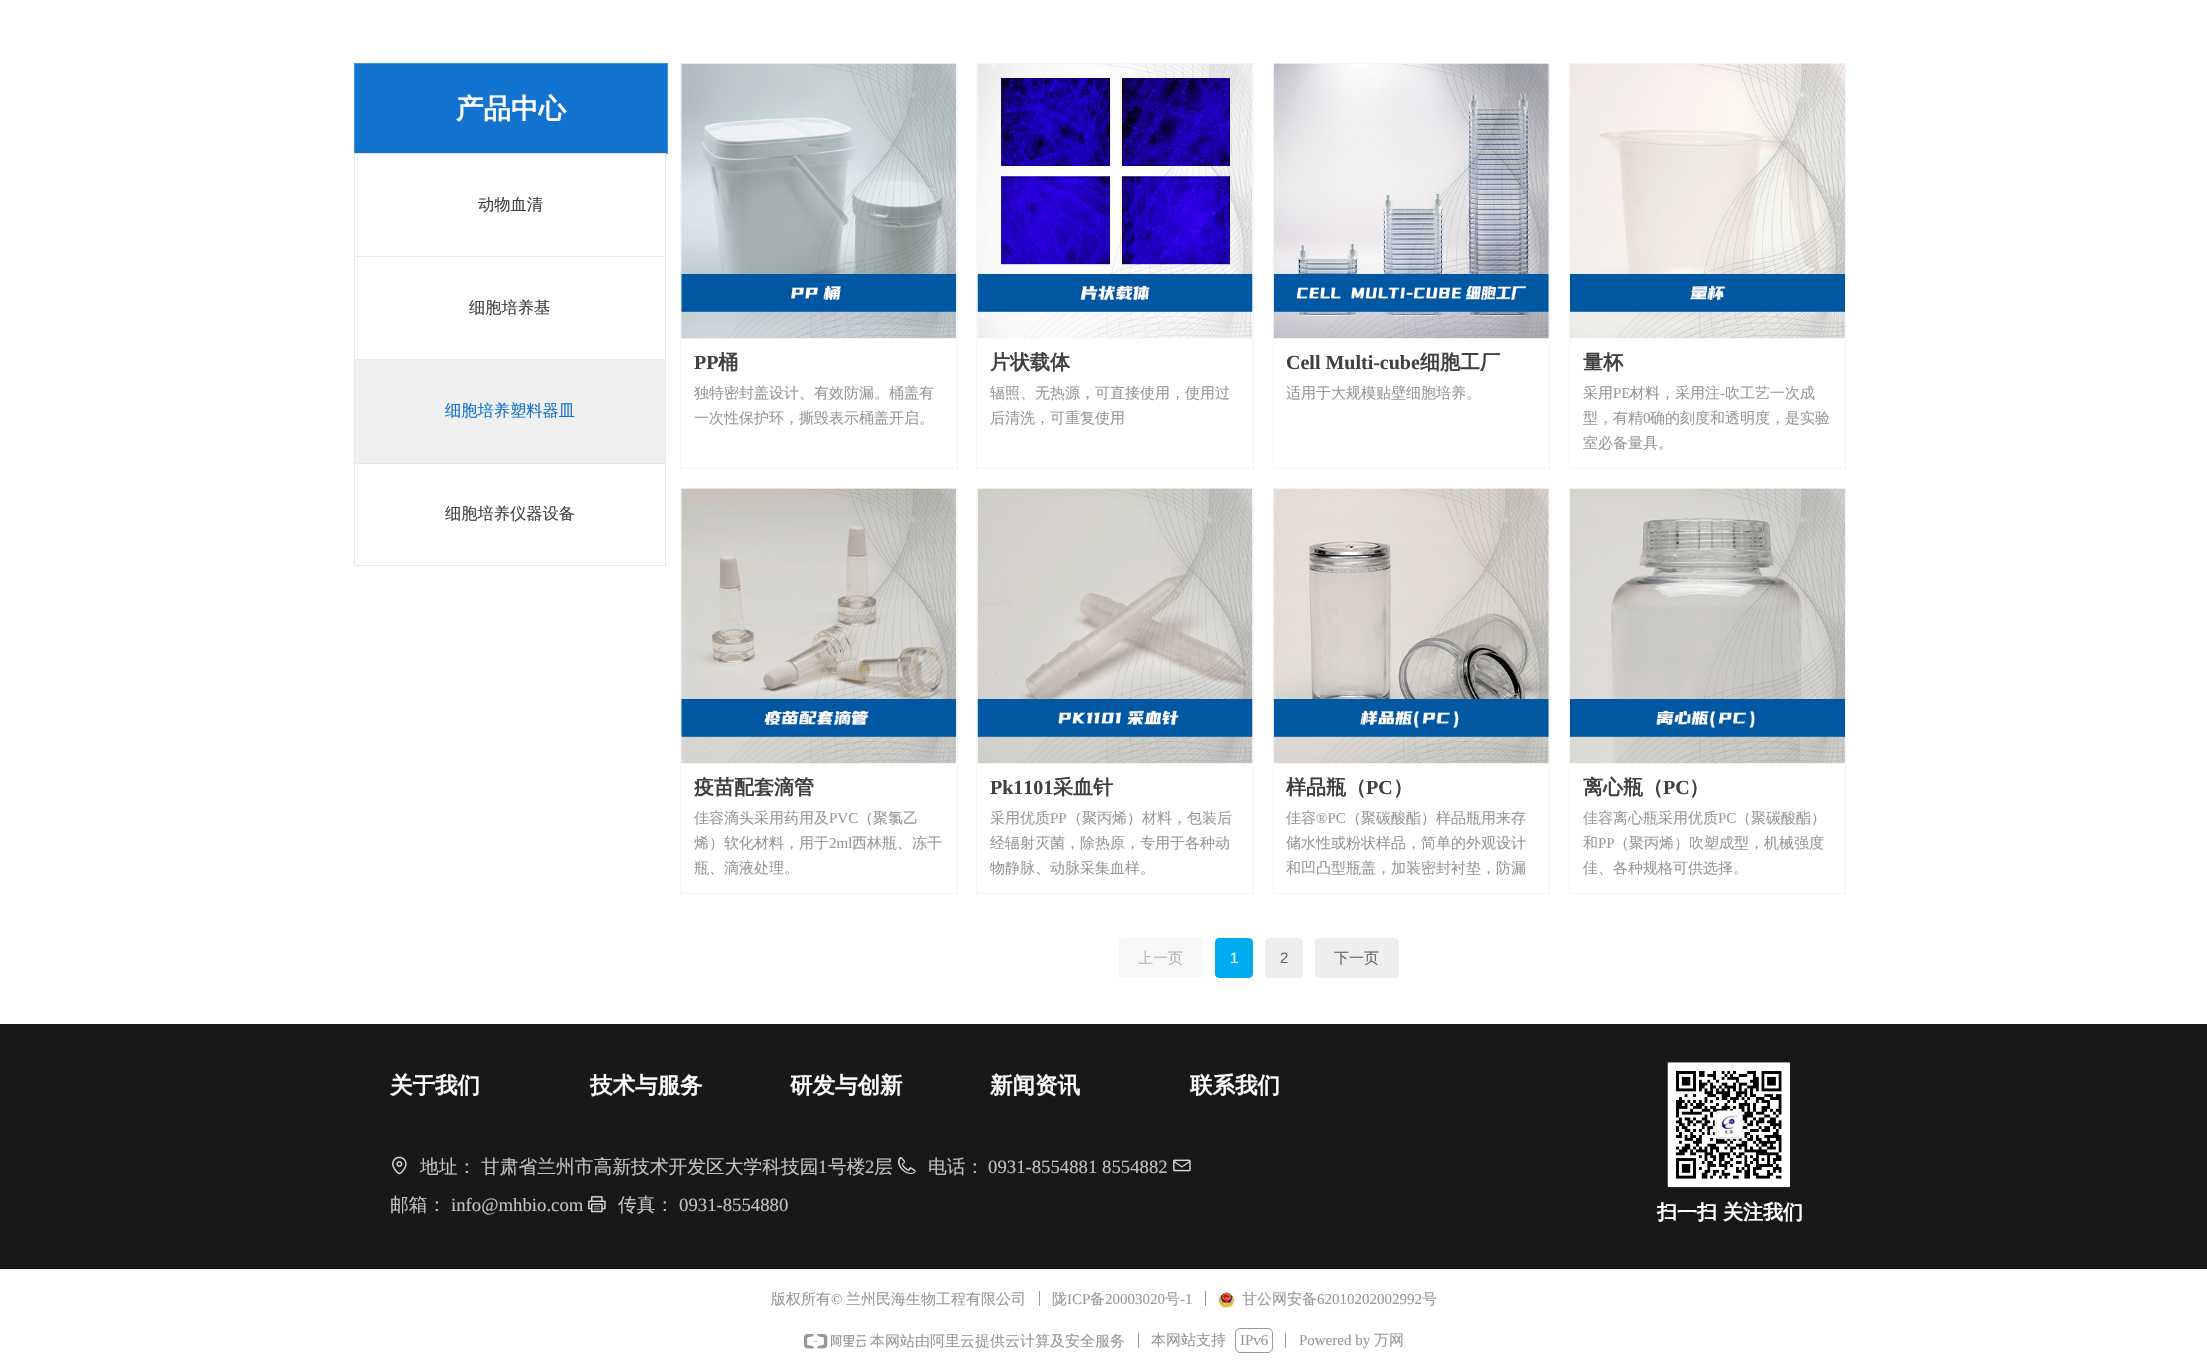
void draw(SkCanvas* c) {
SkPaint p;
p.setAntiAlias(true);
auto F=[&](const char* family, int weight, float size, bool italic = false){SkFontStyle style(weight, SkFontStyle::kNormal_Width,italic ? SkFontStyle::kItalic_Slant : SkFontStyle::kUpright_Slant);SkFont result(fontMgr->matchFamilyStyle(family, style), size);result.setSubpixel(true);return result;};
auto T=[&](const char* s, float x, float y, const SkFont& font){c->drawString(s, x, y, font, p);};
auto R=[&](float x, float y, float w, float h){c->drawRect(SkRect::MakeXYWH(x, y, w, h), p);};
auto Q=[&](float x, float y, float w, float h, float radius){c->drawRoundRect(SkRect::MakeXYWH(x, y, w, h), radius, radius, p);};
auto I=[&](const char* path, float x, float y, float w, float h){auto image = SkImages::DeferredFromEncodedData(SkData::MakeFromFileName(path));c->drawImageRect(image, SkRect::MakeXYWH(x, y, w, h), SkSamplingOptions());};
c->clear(0xffffffff);
p.setColor(0xff1374cf);
c->drawRect(SkRect::MakeXYWH(354.5,63.5,313,90),p);
p.setStroke(true);
p.setStrokeWidth(1);
p.setColor(0xff3099dd);
c->drawRect(SkRect::MakeXYWH(354.5,63.5,313,90),p);
auto f1 = F("WenQuanYi Zen Hei",700,27.5);
p.setStroke(false);
p.setColor(0xffffffff);
T("产品中心",456,118,f1);
p.setStroke(true);
p.setColor(0xffe7e7e7);
c->drawRect(SkRect::MakeXYWH(354.5,153.5,311,412),p);
auto f2 = F("WenQuanYi Zen Hei",500,16.25);
p.setStroke(false);
p.setColor(0xff404040);
T("动物血清",478,210,f2);
p.setColor(0xffe7e7e7);
R(355,256,310,1);
p.setColor(0xff404040);
T("细胞培养基",469,313,f2);
p.setColor(0xfff0f0f0);
R(355,360,310,103);
p.setColor(0xffe7e7e7);
R(355,359,310,1);
p.setColor(0xff1374cf);
T("细胞培养塑料器皿",445,416,f2);
p.setColor(0xffe7e7e7);
R(355,463,310,1);
p.setColor(0xff404040);
T("细胞培养仪器设备",445,519,f2);
p.setStroke(true);
p.setColor(0xfff5f5f5);
c->drawRect(SkRect::MakeXYWH(680.5,63.5,277,405),p);
I("1.png",681,63,276,276);
auto f3 = F("Liberation Serif",700,20);
p.setStroke(false);
p.setColor(0xff404040);
T("PP",694,369,f3);
auto f4 = F("WenQuanYi Zen Hei",700,20);
T("桶",718,369,f4);
auto f5 = F("WenQuanYi Zen Hei",500,15);
p.setColor(0xff989898);
T("独特密封盖设计、有效防漏。桶盖有",694,398,f5);
T("一次性保护环，撕毁表示桶盖开启。",694,423,f5);
p.setStroke(true);
p.setColor(0xfff5f5f5);
c->drawRect(SkRect::MakeXYWH(976.5,63.5,277,405),p);
I("2.png",977,63,276,276);
p.setStroke(false);
p.setColor(0xff404040);
T("片状载体",990,369,f4);
p.setColor(0xff989898);
T("辐照、无热源，可直接使用，使用过",990,398,f5);
T("后清洗，可重复使用",990,423,f5);
p.setStroke(true);
p.setColor(0xfff5f5f5);
c->drawRect(SkRect::MakeXYWH(1273.5,63.5,276,405),p);
I("3.png",1273,63,276,276);
p.setStroke(false);
p.setColor(0xff404040);
T("Cell Multi-cube",1286,369,f3);
T("细胞工厂",1420,369,f4);
p.setColor(0xff989898);
T("适用于大规模贴壁细胞培养。",1286,398,f5);
p.setStroke(true);
p.setColor(0xfff5f5f5);
c->drawRect(SkRect::MakeXYWH(1569.5,63.5,276,405),p);
I("4.png",1570,63,275,276);
p.setStroke(false);
p.setColor(0xff404040);
T("量杯",1583,369,f4);
p.setColor(0xff989898);
T("采用",1583,398,f5);
auto f6 = F("Liberation Serif",400,15);
T("PE",1613,398,f6);
T("材料，采用注",1630,398,f5);
T("-",1720,398,f6);
T("吹工艺一次成",1725,398,f5);
c->save();
c->clipRect(SkRect::MakeXYWH(1583,380,250,75));
T("型，有精",1583,423,f5);
c->restore();
T("0",1643,423,f6);
T("确的刻度和透明度，是实验",1650,423,f5);
T("室必备量具。",1583,448,f5);
p.setStroke(true);
p.setColor(0xfff5f5f5);
c->drawRect(SkRect::MakeXYWH(680.5,488.5,277,405),p);
I("5.png",681,488,276,276);
p.setStroke(false);
p.setColor(0xff404040);
T("疫苗配套滴管",694,794,f4);
p.setColor(0xff989898);
T("佳容滴头采用药用及",694,823,f5);
T("PVC",829,823,f6);
T("（聚氯乙",858,823,f5);
T("烯）软化材料，用于",694,848,f5);
T("2ml",829,848,f6);
T("西林瓶、冻干",852,848,f5);
T("瓶、滴液处理。",694,873,f5);
p.setStroke(true);
p.setColor(0xfff5f5f5);
c->drawRect(SkRect::MakeXYWH(976.5,488.5,277,405),p);
I("6.png",977,488,276,276);
p.setStroke(false);
p.setColor(0xff404040);
T("Pk1101",990,794,f3);
T("采血针",1053,794,f4);
p.setColor(0xff989898);
T("采用优质",990,823,f5);
T("PP",1050,823,f6);
T("（聚丙烯）材料，包装后",1067,823,f5);
T("经辐射灭菌，除热原，专用于各种动",990,848,f5);
T("物静脉、动脉采集血样。",990,873,f5);
p.setStroke(true);
p.setColor(0xfff5f5f5);
c->drawRect(SkRect::MakeXYWH(1273.5,488.5,276,405),p);
I("7.png",1273,488,276,276);
p.setStroke(false);
p.setColor(0xff404040);
T("样品瓶（",1286,794,f4);
T("PC",1366,794,f3);
T("）",1393,794,f4);
p.setColor(0xff989898);
T("佳容",1286,823,f5);
T("®PC",1316,823,f6);
T("（聚碳酸酯）样品瓶用来存",1346,823,f5);
T("储水性或粉状样品，简单的外观设计",1286,848,f5);
T("和凹凸型瓶盖，加装密封衬垫，防漏",1286,873,f5);
p.setStroke(true);
p.setColor(0xfff5f5f5);
c->drawRect(SkRect::MakeXYWH(1569.5,488.5,276,405),p);
I("8.png",1570,488,275,276);
p.setStroke(false);
p.setColor(0xff404040);
T("离心瓶（",1583,794,f4);
T("PC",1663,794,f3);
T("）",1689,794,f4);
p.setColor(0xff989898);
T("佳容离心瓶采用优质",1583,823,f5);
T("PC",1718,823,f6);
T("（聚碳酸酯）",1736,823,f5);
T("和",1583,848,f5);
T("PP",1598,848,f6);
T("（聚丙烯）吹塑成型，机械强度",1614,848,f5);
T("佳、各种规格可供选择。",1583,873,f5);
p.setColor(0xfff7f7f7);
Q(1119,938,84,40,4);
p.setColor(0xffb3b3b3);
T("上一页",1138,963,f5);
p.setColor(0xff00acf0);
c->drawRoundRect(SkRect::MakeXYWH(1215.5,938.5,37,39),3.5,3.5,p);
p.setStroke(true);
c->drawRoundRect(SkRect::MakeXYWH(1215.5,938.5,37,39),3.5,3.5,p);
auto f7 = F("Liberation Sans",400,15);
p.setStroke(false);
p.setColor(0xffffffff);
T("1",1230,963,f7);
p.setColor(0xffeeeeee);
c->drawRoundRect(SkRect::MakeXYWH(1265.5,938.5,37,39),3.5,3.5,p);
p.setStroke(true);
c->drawRoundRect(SkRect::MakeXYWH(1265.5,938.5,37,39),3.5,3.5,p);
p.setStroke(false);
p.setColor(0xff666666);
T("2",1280,963,f7);
p.setColor(0xffeeeeee);
c->drawRoundRect(SkRect::MakeXYWH(1315.5,938.5,83,39),3.5,3.5,p);
p.setStroke(true);
c->drawRoundRect(SkRect::MakeXYWH(1315.5,938.5,83,39),3.5,3.5,p);
p.setStroke(false);
p.setColor(0xff666666);
T("下一页",1334,963,f5);
p.setColor(0xff181818);
R(0,1024,2207,245);
auto f8 = F("WenQuanYi Zen Hei",700,22.5);
p.setColor(0xffffffff);
T("关于我们",390,1093,f8);
T("技术与服务",590,1093,f8);
T("研发与创新",790,1093,f8);
T("新闻资讯",990,1093,f8);
T("联系我们",1190,1093,f8);
I("9.png",1667,1062,123,126);
I("10.png",392,1156,15,19);
auto f9 = F("WenQuanYi Zen Hei",500,18.75);
p.setColor(0xffbdc3c7);
T("地址：",420,1173,f9);
T("甘肃省兰州市高新技术开发区大学科技园",481,1173,f9);
auto f10 = F("Liberation Serif",400,18.75);
T("1",818,1173,f10);
T("号楼",828,1173,f9);
T("2",865,1173,f10);
T("层",874,1173,f9);
I("11.png",898,1157,18,17);
T("电话：",928,1173,f9);
T("0931-8554881 8554882",988,1173,f10);
I("12.png",1173,1159,18,13);
T("邮箱：",390,1211,f9);
T("info@mhbio.com",451,1211,f10);
I("13.png",588,1196,18,17);
T("传真：",618,1211,f9);
T("0931-8554880",679,1211,f10);
p.setColor(0xffffffff);
T("扫一扫",1657,1219,f4);
T("关注我们",1723,1219,f4);
p.setColor(0xff989898);
T("版权所有",771,1304,f5);
T("©",831,1304,f6);
T("兰州民海生物工程有限公司",846,1304,f5);
R(1039,1291,1,15);
T("陇",1052,1304,f5);
T("ICP",1067,1304,f6);
T("备",1090,1304,f5);
T("20003020",1105,1304,f6);
T("号",1165,1304,f5);
T("-1",1180,1304,f6);
R(1205,1291,1,15);
I("14.png",1218,1292,16,16);
T("甘公网安备",1242,1304,f5);
T("62010202002992",1317,1304,f6);
T("号",1422,1304,f5);
I("15.png",804,1334,62,15);
T("本网站由阿里云提供云计算及安全服务",870,1346,f5);
R(1138,1333,1,15);
T("本网站支持",1151,1345,f5);
p.setStroke(true);
c->drawRoundRect(SkRect::MakeXYWH(1235.5,1328.5,37,24),4.5,4.5,p);
p.setStroke(false);
T("IPv6",1240,1345,f6);
R(1285,1333,1,15);
T("Powered by",1299,1345,f6);
T("万网",1374,1345,f5);
}
